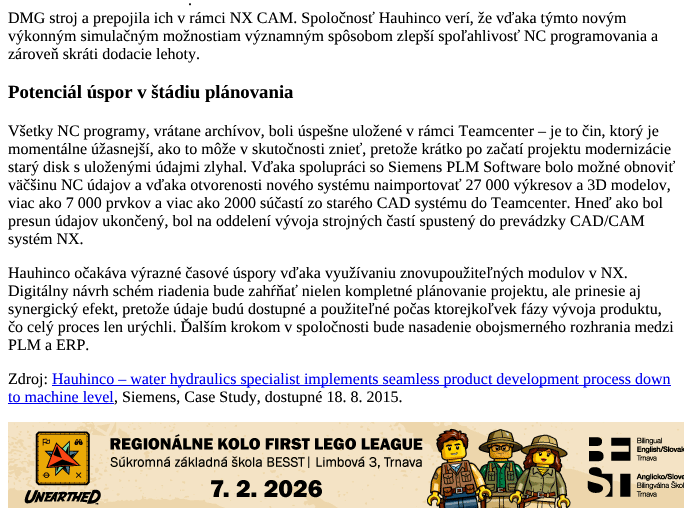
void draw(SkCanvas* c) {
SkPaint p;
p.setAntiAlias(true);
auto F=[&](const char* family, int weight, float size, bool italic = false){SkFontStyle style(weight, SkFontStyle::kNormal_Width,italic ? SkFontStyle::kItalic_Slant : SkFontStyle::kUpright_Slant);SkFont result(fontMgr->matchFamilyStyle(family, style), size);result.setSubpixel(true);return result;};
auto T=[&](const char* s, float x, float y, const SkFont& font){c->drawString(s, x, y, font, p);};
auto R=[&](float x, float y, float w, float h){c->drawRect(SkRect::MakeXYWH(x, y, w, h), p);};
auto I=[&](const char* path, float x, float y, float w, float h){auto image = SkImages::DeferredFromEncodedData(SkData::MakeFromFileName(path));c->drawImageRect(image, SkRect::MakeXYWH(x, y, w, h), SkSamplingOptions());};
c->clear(0xffffffff);
auto f1 = F("Liberation Serif",400,16);
p.setColor(0xff000000);
T(".",188,5,f1);
T("DMG stroj a prepojila ich v rámci NX CAM. Spoločnosť Hauhinco verí, že vďaka týmto novým",8,23,f1);
T("výkonným simulačným možnostiam významným spôsobom zlepší spoľahlivosť NC programovania a",8,41,f1);
T("zároveň skráti dodacie lehoty.",8,59,f1);
auto f2 = F("Liberation Serif",700,18.75);
T("Potenciál úspor v štádiu plánovania",8,98,f2);
T("Všetky NC programy, vrátane archívov, boli úspešne uložené v rámci Teamcenter – je to čin, ktorý je",8,136,f1);
T("momentálne úžasnejší, ako to môže v skutočnosti znieť, pretože krátko po začatí projektu modernizácie",8,154,f1);
T("starý disk s uloženými údajmi zlyhal. Vďaka spolupráci so Siemens PLM Software bolo možné obnoviť",8,172,f1);
T("väčšinu NC údajov a vďaka otvorenosti nového systému naimportovať 27 000 výkresov a 3D modelov,",8,190,f1);
T("viac ako 7 000 prvkov a viac ako 2000 súčastí zo starého CAD systému do Teamcenter. Hneď ako bol",8,208,f1);
T("presun údajov ukončený, bol na oddelení vývoja strojných častí spustený do prevádzky CAD/CAM",8,226,f1);
T("systém NX.",8,244,f1);
T("Hauhinco očakáva výrazné časové úspory vďaka využívaniu znovupoužiteľných modulov v NX.",8,278,f1);
T("Digitálny návrh schém riadenia bude zahŕňať nielen kompletné plánovanie projektu, ale prinesie aj",8,296,f1);
T("synergický efekt, pretože údaje budú dostupné a použiteľné počas ktorejkoľvek fázy vývoja produktu,",8,314,f1);
T("čo celý proces len urýchli. Ďalším krokom v spoločnosti bude nasadenie obojsmerného rozhrania medzi",8,332,f1);
T("PLM a ERP.",8,350,f1);
T("Zdroj:",8,384,f1);
p.setColor(0xff0000ee);
R(52,385,619,1);
T("Hauhinco – water hydraulics specialist implements seamless product development process down",52,384,f1);
T("to machine level",8,402,f1);
R(8,403,106,1);
p.setColor(0xff000000);
T(", Siemens, Case Study, dostupné 18. 8. 2015.",114,402,f1);
I("1.png",8,422,676,86);
}
